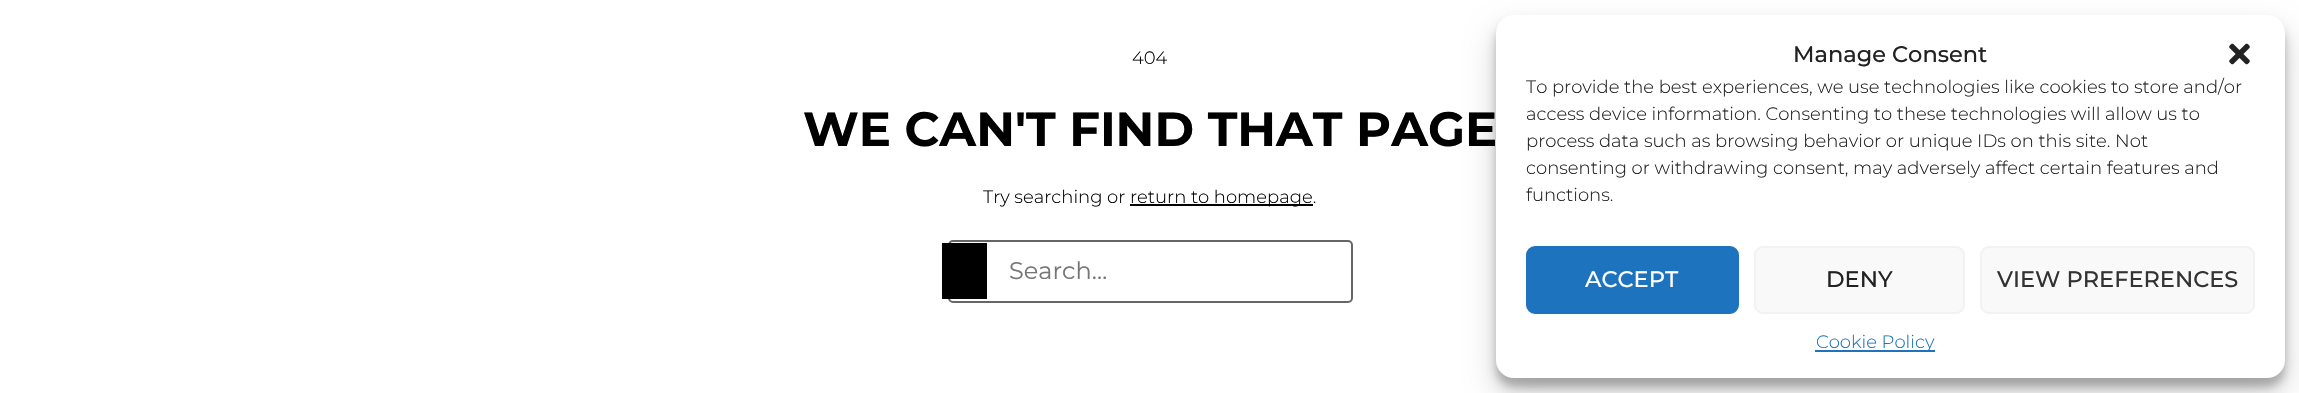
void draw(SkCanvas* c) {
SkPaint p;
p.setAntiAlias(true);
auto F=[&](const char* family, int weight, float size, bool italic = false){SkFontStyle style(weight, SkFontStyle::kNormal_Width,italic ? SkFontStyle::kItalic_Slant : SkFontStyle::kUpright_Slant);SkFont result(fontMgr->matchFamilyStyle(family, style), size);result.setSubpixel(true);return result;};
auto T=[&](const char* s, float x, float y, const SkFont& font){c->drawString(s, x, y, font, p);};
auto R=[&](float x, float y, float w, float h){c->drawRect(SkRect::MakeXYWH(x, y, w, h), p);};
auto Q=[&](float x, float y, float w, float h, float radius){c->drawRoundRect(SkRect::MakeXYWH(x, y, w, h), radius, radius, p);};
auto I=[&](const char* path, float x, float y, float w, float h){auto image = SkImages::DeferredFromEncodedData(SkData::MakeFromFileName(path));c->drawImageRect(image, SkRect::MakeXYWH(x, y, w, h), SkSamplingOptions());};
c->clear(0xffffffff);
auto f1 = F("Montserrat",300,18);
p.setColor(0xff000000);
T("404",1132,64,f1);
auto f2 = F("Montserrat",700,48);
T("WE CAN'T FIND THAT PAGE",803,146,f2);
T("Try searching or",983,203,f1);
R(1130,204,183,2);
T("return to homepage.",1130,203,f1);
p.setStroke(true);
p.setStrokeWidth(2);
p.setColor(0xff666666);
c->drawRoundRect(SkRect::MakeXYWH(949,241,403,61),4,4,p);
p.setStroke(false);
p.setColor(0xff000000);
R(942,243,45,56);
auto f3 = F("Montserrat",400,24);
p.setColor(0xff757575);
T("Search…",1009,279,f3);
p.setColor(0x3b000000);
p.setMaskFilter(SkMaskFilter::MakeBlur(kNormal_SkBlurStyle, 4.5));
c->drawRoundRect(SkRect::MakeXYWH(1496,24,789,363),18,18,p);
p.setMaskFilter(nullptr);
p.setColor(0x30000000);
p.setMaskFilter(SkMaskFilter::MakeBlur(kNormal_SkBlurStyle, 15));
c->drawRoundRect(SkRect::MakeXYWH(1496,30,789,363),18,18,p);
p.setMaskFilter(nullptr);
p.setColor(0xffffffff);
Q(1496,15,789,363,18);
auto f4 = F("Montserrat",500,22.5);
p.setColor(0xff222222);
T("Manage Consent",1793,62,f4);
I("1.png",2229,43,21,22);
T("To provide the best experiences, we use technologies like cookies to store and/or",1526,93,f1);
T("access device information. Consenting to these technologies will allow us to",1526,120,f1);
T("process data such as browsing behavior or unique IDs on this site. Not",1526,147,f1);
T("consenting or withdrawing consent, may adversely affect certain features and",1526,174,f1);
T("functions.",1526,201,f1);
p.setColor(0xff1e73be);
c->drawRoundRect(SkRect::MakeXYWH(1527,247,211,66),8,8,p);
p.setStroke(true);
c->drawRoundRect(SkRect::MakeXYWH(1527,247,211,66),8,8,p);
p.setStroke(false);
p.setColor(0xffffffff);
T("ACCEPT",1585,287,f4);
p.setColor(0xfff9f9f9);
c->drawRoundRect(SkRect::MakeXYWH(1755,247,209,66),8,8,p);
p.setStroke(true);
p.setColor(0xfff2f2f2);
c->drawRoundRect(SkRect::MakeXYWH(1755,247,209,66),8,8,p);
p.setStroke(false);
p.setColor(0xff222222);
T("DENY",1826,287,f4);
p.setColor(0xfff9f9f9);
c->drawRoundRect(SkRect::MakeXYWH(1981,247,273,66),8,8,p);
p.setStroke(true);
p.setColor(0xfff2f2f2);
c->drawRoundRect(SkRect::MakeXYWH(1981,247,273,66),8,8,p);
p.setStroke(false);
p.setColor(0xff333333);
T("VIEW PREFERENCES",1997,287,f4);
p.setColor(0xff1e73be);
R(1815,350,120,2);
T("Cookie Policy",1816,348,f1);
}
